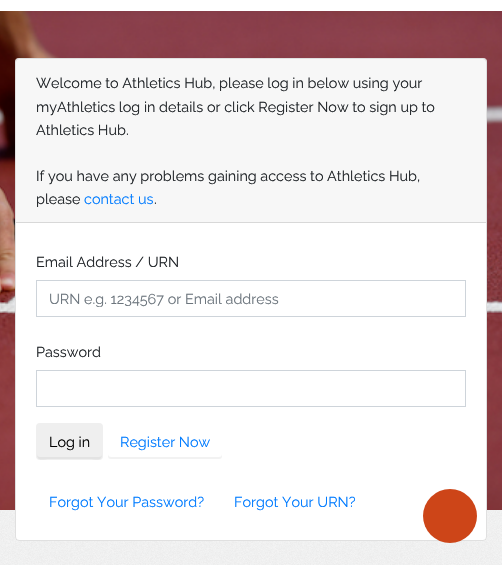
void draw(SkCanvas* c) {
SkPaint p;
p.setAntiAlias(true);
auto F=[&](const char* family, int weight, float size, bool italic = false){SkFontStyle style(weight, SkFontStyle::kNormal_Width,italic ? SkFontStyle::kItalic_Slant : SkFontStyle::kUpright_Slant);SkFont result(fontMgr->matchFamilyStyle(family, style), size);result.setSubpixel(true);return result;};
auto T=[&](const char* s, float x, float y, const SkFont& font){c->drawString(s, x, y, font, p);};
auto R=[&](float x, float y, float w, float h){c->drawRect(SkRect::MakeXYWH(x, y, w, h), p);};
auto Q=[&](float x, float y, float w, float h, float radius){c->drawRoundRect(SkRect::MakeXYWH(x, y, w, h), radius, radius, p);};
auto I=[&](const char* path, float x, float y, float w, float h){auto image = SkImages::DeferredFromEncodedData(SkData::MakeFromFileName(path));c->drawImageRect(image, SkRect::MakeXYWH(x, y, w, h), SkSamplingOptions());};
auto P=[&](const char* data, bool evenOdd = false){SkPath result = *SkParsePath::FromSVGString(data);if (evenOdd) result.setFillType(SkPathFillType::kEvenOdd);return result;};
c->clear(0xffffffff);
I("1.png",0,510,502,55);
I("2.png",0,11,502,499);
p.setColor(0x0a000000);
p.setMaskFilter(SkMaskFilter::MakeBlur(kNormal_SkBlurStyle, 2));
c->drawRect(SkRect::MakeXYWH(0,-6,502,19),p);
p.setMaskFilter(nullptr);
p.setColor(0xffffffff);
R(0,0,502,11);
Q(15,58,472,483,4);
p.setStroke(true);
p.setStrokeWidth(1);
p.setColor(0x1f000000);
c->drawRoundRect(SkRect::MakeXYWH(15.5,58.5,471,482),3.5,3.5,p);
p.setStroke(false);
p.setColor(0x08000000);
R(16,59,470,163);
p.setColor(0xffd8d8d8);
R(16,222,470,1);
auto f1 = F("Raleway",400,14.4);
p.setColor(0xff212529);
T("Welcome to Athletics Hub, please log in below using your",36,88,f1);
T("myAthletics log in details or click Register Now to sign up to",36,112,f1);
T("Athletics Hub.",36,135,f1);
T("If you have any problems gaining access to Athletics Hub,",36,181,f1);
T("please",36,204,f1);
p.setColor(0xff007bff);
T("contact us",84,204,f1);
p.setColor(0xff212529);
T(".",154,204,f1);
T("Email Address / URN",36,267,f1);
p.setStroke(true);
p.setColor(0xffced4da);
c->drawRect(SkRect::MakeXYWH(36.5,280.5,429,36),p);
c->save();
c->clipRect(SkRect::MakeXYWH(49,290,404,17));
p.setStroke(false);
p.setColor(0xff6c757d);
T("URN e.g. 1234567 or Email address",49,304,f1);
c->restore();
p.setColor(0xff212529);
T("Password",36,357,f1);
p.setStroke(true);
p.setColor(0xffced4da);
c->drawRect(SkRect::MakeXYWH(36.5,370.5,429,36),p);
p.setStroke(false);
p.setColor(0xffefefef);
Q(36,423,67,37,4);
p.setColor(0xffe3e3e3);
c->drawPath(P("M37 454c0 8 6 5 13 5h39c7 0 13 3 13-5c0 2-1 3-3 3h-59c-2 0-3-1-3-3z"),p);
p.setColor(0xff000000);
T("Log in",49,447,f1);
p.setColor(0xfff2f2f2);
c->drawPath(P("M108 454v2c0 2 1 3 3 3h108c2 0 3-1 3-3v-2c0 2-1 3-3 3h-108c-2 0-3-1-3-3z"),p);
p.setColor(0xff007bff);
T("Register Now",120,447,f1);
T("Forgot Your Password?",49,507,f1);
T("Forgot Your URN?",234,507,f1);
p.setColor(0xffcd4518);
c->drawCircle(450,516,27,p);
}
